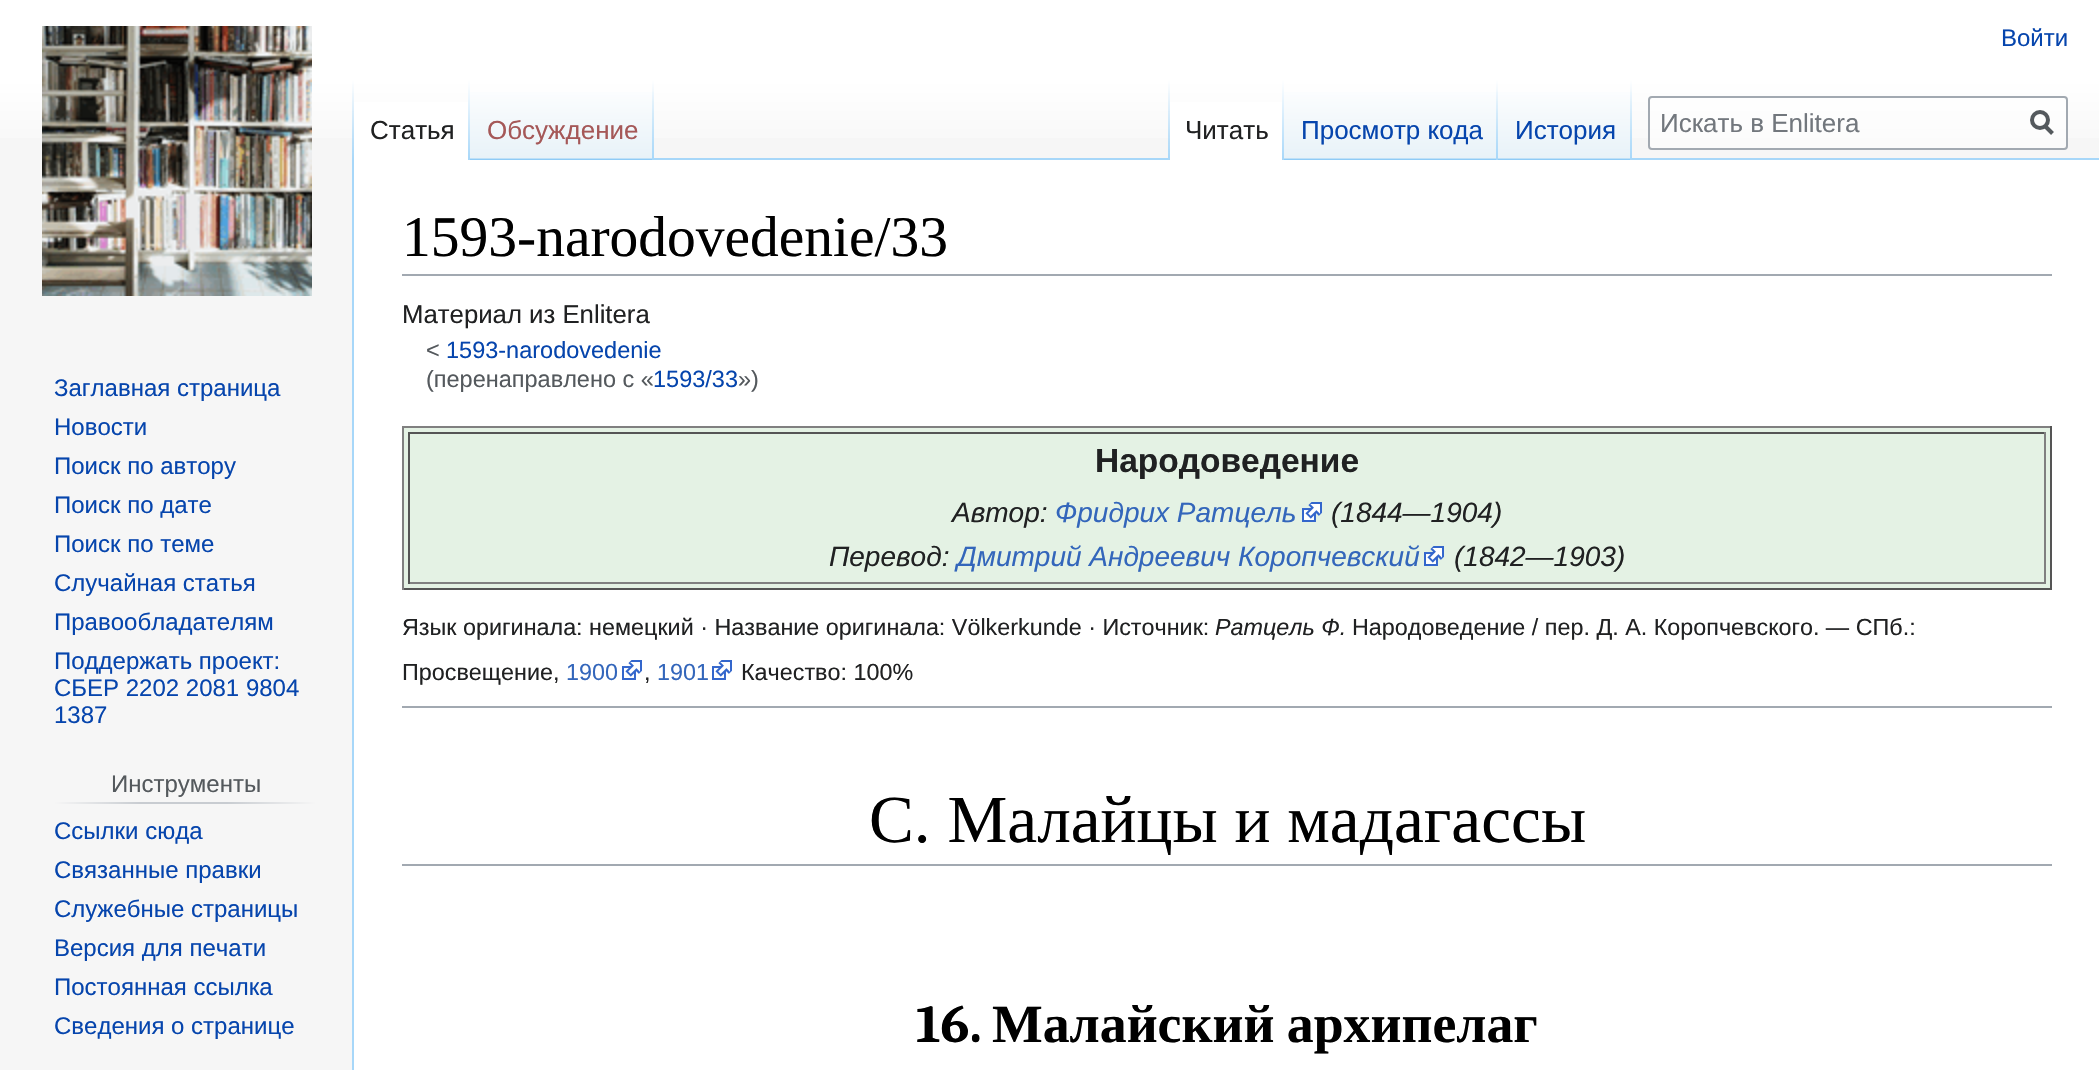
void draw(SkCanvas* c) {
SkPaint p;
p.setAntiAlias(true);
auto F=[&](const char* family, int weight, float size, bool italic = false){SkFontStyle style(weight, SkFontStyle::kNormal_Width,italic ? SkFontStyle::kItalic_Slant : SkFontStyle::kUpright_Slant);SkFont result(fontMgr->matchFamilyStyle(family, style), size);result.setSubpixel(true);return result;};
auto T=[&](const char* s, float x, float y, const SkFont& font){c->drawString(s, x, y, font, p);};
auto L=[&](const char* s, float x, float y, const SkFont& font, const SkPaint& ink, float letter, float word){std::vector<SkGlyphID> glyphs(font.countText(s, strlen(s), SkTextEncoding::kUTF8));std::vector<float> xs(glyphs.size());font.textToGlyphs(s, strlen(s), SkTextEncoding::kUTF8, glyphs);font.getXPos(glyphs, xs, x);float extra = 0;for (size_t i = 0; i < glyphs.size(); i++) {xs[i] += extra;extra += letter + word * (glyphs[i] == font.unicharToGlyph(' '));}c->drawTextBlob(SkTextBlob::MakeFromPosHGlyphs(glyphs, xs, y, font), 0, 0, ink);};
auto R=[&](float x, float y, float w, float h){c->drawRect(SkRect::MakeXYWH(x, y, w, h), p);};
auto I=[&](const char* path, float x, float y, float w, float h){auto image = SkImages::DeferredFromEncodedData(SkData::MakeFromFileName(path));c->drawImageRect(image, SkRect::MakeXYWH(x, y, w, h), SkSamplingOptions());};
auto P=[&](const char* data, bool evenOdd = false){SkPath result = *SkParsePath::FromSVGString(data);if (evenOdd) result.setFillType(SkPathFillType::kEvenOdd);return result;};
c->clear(0xfff6f6f6);
{
const SkColor colors[] = {0xffffffff,0xfff6f6f6};
const float stops[] = {.5,1};
const SkPoint ends[] = {{1050,0}, {1050,160}};
p.setShader(SkGradientShader::MakeLinear(ends, colors, stops, 2, SkTileMode::kClamp));
p.setAlpha(255);
}
R(0,0,2099,138);
auto f1 = F("Liberation Sans",400,24);
p.setShader(nullptr);
p.setColor(0xff0645ad);
T("Войти",2001,46,f1);
p.setColor(0xffa7d7f9);
R(352,158,2,912);
{
const SkColor colors[] = {0x00a7d7f9,0xffa7d7f9};
const float stops[] = {0,1};
const SkPoint ends[] = {{353,80}, {353,160}};
p.setShader(SkGradientShader::MakeLinear(ends, colors, stops, 2, SkTileMode::kClamp));
p.setAlpha(255);
}
R(352,80,2,80);
p.setShader(nullptr);
p.setColor(0xffffffff);
R(354,102,114,58);
{
const SkColor colors[] = {0xffffffff,0xffa7d7f9};
const float stops[] = {0,1};
const SkPoint ends[] = {{469,80}, {469,160}};
p.setShader(SkGradientShader::MakeLinear(ends, colors, stops, 2, SkTileMode::kClamp));
p.setAlpha(255);
}
R(468,80,2,80);
auto f2 = F("Liberation Sans",400,26);
p.setShader(nullptr);
p.setColor(0xff202122);
T("Статья",370,139,f2);
{
const SkColor colors[] = {0xff77c1f6,0xffe8f2f8,0xffffffff};
const float stops[] = {0,.03,1};
const SkPoint ends[] = {{562,160}, {562,80}};
p.setShader(SkGradientShader::MakeLinear(ends, colors, stops, 3, SkTileMode::kClamp));
p.setAlpha(255);
}
R(470,92,184,68);
{
const SkColor colors[] = {0x00a7d7f9,0xffa7d7f9};
const float stops[] = {0,1};
const SkPoint ends[] = {{653,80}, {653,160}};
p.setShader(SkGradientShader::MakeLinear(ends, colors, stops, 2, SkTileMode::kClamp));
p.setAlpha(255);
}
R(652,80,2,80);
p.setShader(nullptr);
p.setColor(0xffa55858);
T("Обсуждение",487,139,f2);
p.setColor(0xffa7d7f9);
R(654,158,1445,2);
{
const SkColor colors[] = {0x00a7d7f9,0xffa7d7f9};
const float stops[] = {0,1};
const SkPoint ends[] = {{1169,80}, {1169,160}};
p.setShader(SkGradientShader::MakeLinear(ends, colors, stops, 2, SkTileMode::kClamp));
p.setAlpha(255);
}
R(1168,80,2,80);
p.setShader(nullptr);
p.setColor(0xffffffff);
R(1170,102,112,58);
{
const SkColor colors[] = {0xffffffff,0xffa7d7f9};
const float stops[] = {0,1};
const SkPoint ends[] = {{1283,80}, {1283,160}};
p.setShader(SkGradientShader::MakeLinear(ends, colors, stops, 2, SkTileMode::kClamp));
p.setAlpha(255);
}
R(1282,80,2,80);
p.setShader(nullptr);
p.setColor(0xff202122);
T("Читать",1185,139,f2);
{
const SkColor colors[] = {0xff77c1f6,0xffe8f2f8,0xffffffff};
const float stops[] = {0,.03,1};
const SkPoint ends[] = {{1391,160}, {1391,80}};
p.setShader(SkGradientShader::MakeLinear(ends, colors, stops, 3, SkTileMode::kClamp));
p.setAlpha(255);
}
R(1284,92,214,68);
{
const SkColor colors[] = {0x00a7d7f9,0xffa7d7f9};
const float stops[] = {0,1};
const SkPoint ends[] = {{1497,80}, {1497,160}};
p.setShader(SkGradientShader::MakeLinear(ends, colors, stops, 2, SkTileMode::kClamp));
p.setAlpha(255);
}
R(1496,80,2,80);
p.setShader(nullptr);
p.setColor(0xff0645ad);
T("Просмотр кода",1301,139,f2);
{
const SkColor colors[] = {0xff77c1f6,0xffe8f2f8,0xffffffff};
const float stops[] = {0,.03,1};
const SkPoint ends[] = {{1565,160}, {1565,80}};
p.setShader(SkGradientShader::MakeLinear(ends, colors, stops, 3, SkTileMode::kClamp));
p.setAlpha(255);
}
R(1498,92,134,68);
{
const SkColor colors[] = {0x00a7d7f9,0xffa7d7f9};
const float stops[] = {0,1};
const SkPoint ends[] = {{1631,80}, {1631,160}};
p.setShader(SkGradientShader::MakeLinear(ends, colors, stops, 2, SkTileMode::kClamp));
p.setAlpha(255);
}
R(1630,80,2,80);
p.setShader(nullptr);
p.setColor(0xff0645ad);
T("История",1515,139,f2);
p.setColor(0x80ffffff);
c->drawRoundRect(SkRect::MakeXYWH(1649,97,418,52),3,3,p);
p.setStroke(true);
p.setStrokeWidth(2);
p.setColor(0xffa2a9b1);
c->drawRoundRect(SkRect::MakeXYWH(1649,97,418,52),3,3,p);
p.setStroke(false);
p.setColor(0xff72777d);
T("Искать в Enlitera",1660,132,f2);
p.setStroke(true);
p.setStrokeWidth(4);
p.setColor(0xff54595d);
c->drawPath(P("M2052.5 133.5l-8-8"),p);
c->drawCircle(2040,120,8,p);
I("1.png",42,26,270,270);
p.setStroke(false);
p.setColor(0xff0645ad);
T("Заглавная страница",54,396,f1);
T("Новости",54,435,f1);
T("Поиск по автору",54,474,f1);
T("Поиск по дате",54,513,f1);
T("Поиск по теме",54,552,f1);
T("Случайная статья",54,591,f1);
T("Правообладателям",54,630,f1);
T("Поддержать проект:",54,669,f1);
T("СБЕР 2202 2081 9804",54,696,f1);
T("1387",54,723,f1);
{
const SkColor colors[] = {0xfff6f6f6,0xffc8ccd1,0xffc8ccd1,0xfff6f6f6};
const float stops[] = {0,.33,.66,1};
const SkPoint ends[] = {{54,803}, {316,803}};
p.setShader(SkGradientShader::MakeLinear(ends, colors, stops, 4, SkTileMode::kClamp));
p.setAlpha(255);
}
R(54,802,262,2);
p.setShader(nullptr);
p.setColor(0xff54595d);
T("Инструменты",111,792,f1);
p.setColor(0xff0645ad);
T("Ссылки сюда",54,839,f1);
T("Связанные правки",54,878,f1);
T("Служебные страницы",54,917,f1);
T("Версия для печати",54,956,f1);
T("Постоянная ссылка",54,995,f1);
T("Сведения о странице",54,1034,f1);
p.setColor(0xffffffff);
R(354,160,1745,910);
p.setColor(0xffa2a9b1);
R(402,274,1650,2);
auto f3 = F("Liberation Serif",400,57.5);
p.setColor(0xff000000);
T("1593-narodovedenie/33",402,256,f3);
auto f4 = F("Liberation Sans",400,25.75);
p.setColor(0xff202122);
T("Материал из Enlitera",402,323,f4);
auto f5 = F("Liberation Sans",400,23.5);
p.setColor(0xff54595d);
T("<",426,358,f5);
p.setColor(0xff0645ad);
T("1593-narodovedenie",446,358,f5);
p.setColor(0xff54595d);
T("(перенаправлено с «",426,387,f5);
p.setColor(0xff0645ad);
T("1593/33",653,387,f5);
p.setColor(0xff54595d);
T("»)",738,387,f5);
p.setColor(0xffe4f2e4);
R(404,428,1646,160);
p.setColor(0xff808080);
R(402,426,1650,2);
p.setColor(0xff555555);
R(2050,426,2,164);
R(402,588,1650,2);
p.setColor(0xff808080);
R(402,426,2,164);
p.setColor(0xff555555);
R(408,432,1638,2);
p.setColor(0xff808080);
R(2044,432,2,152);
R(408,582,1638,2);
p.setColor(0xff555555);
R(408,432,2,152);
auto f6 = F("Liberation Sans",700,33.5);
p.setColor(0xff202122);
T("Народоведение",1095,472,f6);
auto f7 = F("Liberation Sans",400,28,true);
T("Автор:",952,522,f7);
p.setColor(0xff3366bb);
T("Фридрих Ратцель",1055,522,f7);
I("2.png",1302,502,20,20);
p.setColor(0xff202122);
T("(1844—1904)",1331,522,f7);
T("Перевод:",829,566,f7);
p.setColor(0xff3366bb);
T("Дмитрий Андреевич Коропчевский",957,566,f7);
I("2.png",1424,546,20,20);
p.setColor(0xff202122);
T("(1842—1903)",1454,566,f7);
auto f8 = F("Liberation Sans",400,23.35);
T("Язык оригинала: немецкий · Название оригинала: Völkerkunde · Источник:",402,635,f8);
auto f9 = F("Liberation Sans",400,23.35,true);
T("Ратцель Ф.",1215,635,f9);
T("Народоведение / пер. Д. А. Коропчевского. — СПб.:",1352,635,f8);
T("Просвещение,",402,680,f8);
p.setColor(0xff3366bb);
T("1900",566,680,f8);
I("3.png",622,660,20,20);
p.setColor(0xff202122);
T(",",644,680,f8);
p.setColor(0xff3366bb);
T("1901",657,680,f8);
I("3.png",712,660,20,20);
p.setColor(0xff202122);
T("Качество: 100%",741,680,f8);
p.setColor(0xffa2a9b1);
R(402,706,1650,2);
R(402,864,1650,2);
auto f10 = F("Liberation Serif",400,67.25);
p.setColor(0xff000000);
T("С. Малайцы и мадагассы",869,842,f10);
auto f11 = F("Caladea",700,53.75);
T("16.",916,1042,f11);
auto f12 = F("Liberation Serif",700,53.75);
L("Малайский архипелаг",992,1042,f12,p,0,-1);
}
